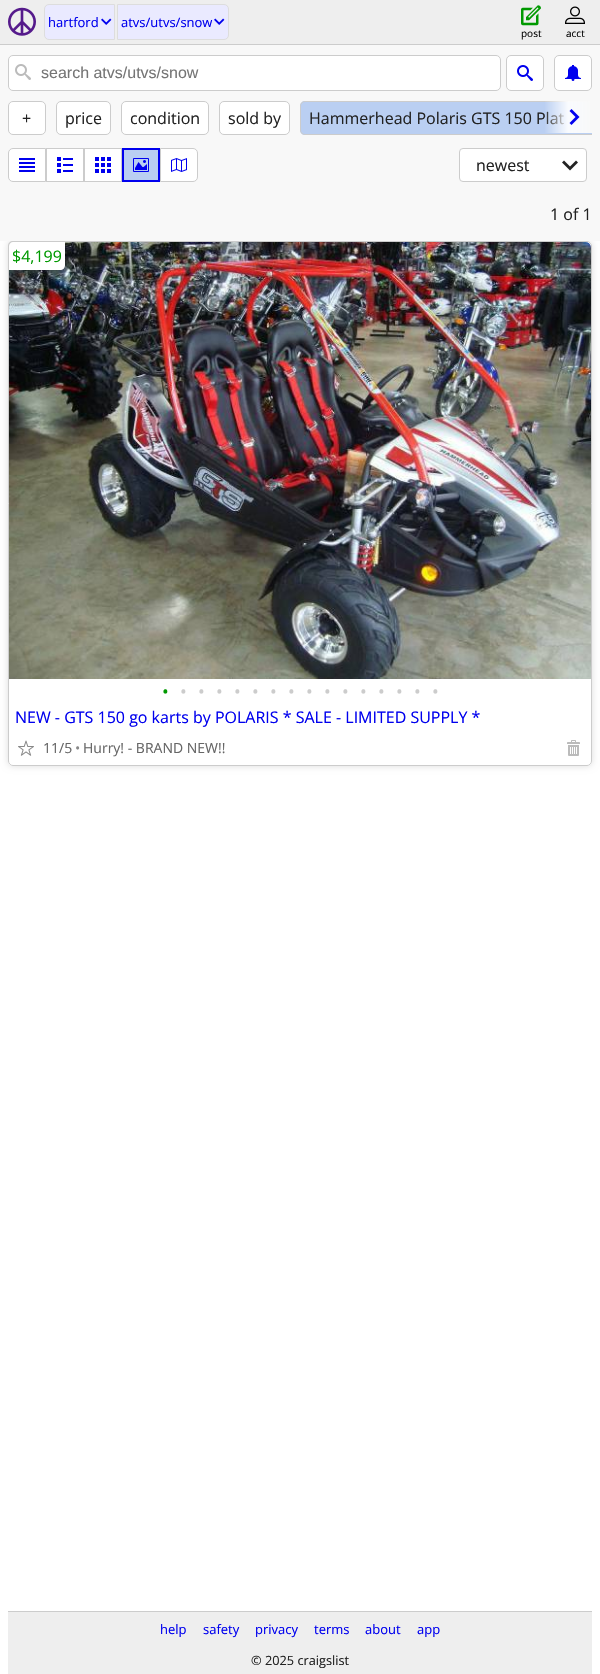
void draw(SkCanvas* c) {
SkPaint p;
p.setAntiAlias(true);
auto F=[&](const char* family, int weight, float size, bool italic = false){SkFontStyle style(weight, SkFontStyle::kNormal_Width,italic ? SkFontStyle::kItalic_Slant : SkFontStyle::kUpright_Slant);SkFont result(fontMgr->matchFamilyStyle(family, style), size);result.setSubpixel(true);return result;};
auto T=[&](const char* s, float x, float y, const SkFont& font){c->drawString(s, x, y, font, p);};
auto R=[&](float x, float y, float w, float h){c->drawRect(SkRect::MakeXYWH(x, y, w, h), p);};
auto I=[&](const char* path, float x, float y, float w, float h){auto image = SkImages::DeferredFromEncodedData(SkData::MakeFromFileName(path));c->drawImageRect(image, SkRect::MakeXYWH(x, y, w, h), SkSamplingOptions());};
auto P=[&](const char* data, bool evenOdd = false){SkPath result = *SkParsePath::FromSVGString(data);if (evenOdd) result.setFillType(SkPathFillType::kEvenOdd);return result;};
c->clear(0xffffffff);
p.setColor(0xffeeeeee);
R(0,0,600,44);
p.setColor(0xffcccccc);
R(0,44,600,1);
I("1.png",8,7,28,29);
p.setColor(0xffeaeaff);
c->drawPath(P("M49 4.5h65.5v35h-65.5c-2.5 0-4.5-2-4.5-4.5v-26c0-2.5 2-4.5 4.5-4.5z"),p);
p.setStroke(true);
p.setStrokeWidth(1);
p.setColor(0xffdddddd);
c->drawPath(P("M49 4.5h65.5v35h-65.5c-2.5 0-4.5-2-4.5-4.5v-26c0-2.5 2-4.5 4.5-4.5z"),p);
auto f1 = F("Open Sans",400,13);
p.setStroke(false);
p.setColor(0xff0000ee);
T("hartford",48,27,f1);
I("2.png",101,18,11,7);
p.setColor(0xffeaeaff);
c->drawPath(P("M117.5 4.5h106.5c2.5 0 4.5 2 4.5 4.5v26c0 2.5-2 4.5-4.5 4.5h-106.5z"),p);
p.setStroke(true);
p.setColor(0xffdddddd);
c->drawPath(P("M117.5 4.5h106.5c2.5 0 4.5 2 4.5 4.5v26c0 2.5-2 4.5-4.5 4.5h-106.5z"),p);
p.setStroke(false);
p.setColor(0xff0000ee);
T("atvs/utvs/snow",121,27,f1);
I("2.png",214,18,11,7);
I("3.png",521,5,20,21);
auto f2 = F("Open Sans",400,10);
p.setColor(0xff000000);
T("post",521,37,f2);
I("4.png",565,6,20,18);
T("acct",566,37,f2);
c->save();
c->clipPath(P("M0 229h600v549h-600zm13 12h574c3 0 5 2 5 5v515c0 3-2 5-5 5h-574c-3 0-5-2-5-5v-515c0-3 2-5 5-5z",true),true);
p.setColor(0xffdddddd);
p.setMaskFilter(SkMaskFilter::MakeBlur(kNormal_SkBlurStyle, 3.5));
c->drawRoundRect(SkRect::MakeXYWH(8,241,584,525),5,5,p);
p.setMaskFilter(nullptr);
c->restore();
p.setColor(0xfff8f8f8);
R(0,45,600,196);
p.setColor(0xffffffff);
c->drawRoundRect(SkRect::MakeXYWH(8.5,55.5,492,35),4.5,4.5,p);
p.setStroke(true);
p.setColor(0xffcccccc);
c->drawRoundRect(SkRect::MakeXYWH(8.5,55.5,492,35),4.5,4.5,p);
I("5.png",15,64,16,16);
auto f3 = F("Liberation Sans",400,16);
p.setStroke(false);
p.setColor(0xff757575);
T("search atvs/utvs/snow",41,78,f3);
p.setColor(0xffffffff);
c->drawRoundRect(SkRect::MakeXYWH(506.5,55.5,37,35),4.5,4.5,p);
p.setStroke(true);
p.setColor(0xffcccccc);
c->drawRoundRect(SkRect::MakeXYWH(506.5,55.5,37,35),4.5,4.5,p);
I("6.png",517,65,16,16);
p.setStroke(false);
p.setColor(0xffffffff);
c->drawRoundRect(SkRect::MakeXYWH(554.5,55.5,37,35),4.5,4.5,p);
p.setStroke(true);
p.setColor(0xffcccccc);
c->drawRoundRect(SkRect::MakeXYWH(554.5,55.5,37,35),4.5,4.5,p);
I("7.png",565,65,16,16);
p.setStroke(false);
p.setColor(0xffffffff);
c->drawRoundRect(SkRect::MakeXYWH(8.5,101.5,37,33),4.5,4.5,p);
p.setStroke(true);
p.setColor(0xffcccccc);
c->drawRoundRect(SkRect::MakeXYWH(8.5,101.5,37,33),4.5,4.5,p);
auto f4 = F("Open Sans",400,16);
p.setStroke(false);
p.setColor(0xff222222);
T("+",22,124,f4);
p.setColor(0xffffffff);
c->drawRoundRect(SkRect::MakeXYWH(56.5,101.5,54,33),4.5,4.5,p);
p.setStroke(true);
p.setColor(0xffcccccc);
c->drawRoundRect(SkRect::MakeXYWH(56.5,101.5,54,33),4.5,4.5,p);
p.setStroke(false);
p.setColor(0xff222222);
T("price",65,124,f4);
p.setColor(0xffffffff);
c->drawRoundRect(SkRect::MakeXYWH(121.5,101.5,87,33),4.5,4.5,p);
p.setStroke(true);
p.setColor(0xffcccccc);
c->drawRoundRect(SkRect::MakeXYWH(121.5,101.5,87,33),4.5,4.5,p);
p.setStroke(false);
p.setColor(0xff222222);
T("condition",130,124,f4);
p.setColor(0xffffffff);
c->drawRoundRect(SkRect::MakeXYWH(219.5,101.5,70,33),4.5,4.5,p);
p.setStroke(true);
p.setColor(0xffcccccc);
c->drawRoundRect(SkRect::MakeXYWH(219.5,101.5,70,33),4.5,4.5,p);
p.setStroke(false);
p.setColor(0xff222222);
T("sold by",228,124,f4);
p.setColor(0xffbacff2);
c->drawPath(P("M305 101h287v34h-287c-3 0-5-2-5-5v-24c0-3 2-5 5-5z"),p);
c->save();
c->clipRect(SkRect::MakeXYWH(8,101,584,34));
p.setStroke(true);
p.setColor(0xffcccccc);
c->drawRoundRect(SkRect::MakeXYWH(300.5,101.5,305,33),4.5,4.5,p);
c->restore();
p.setStroke(false);
p.setColor(0xff222222);
T("Hammerhead Polaris GTS 150 Plat",309,124,f4);
{
const SkColor colors[] = {0x00ffffff,0xe6ffffff,0xfff8f8f8};
const float stops[] = {0,.5,1};
const SkPoint ends[] = {{544,117}, {592,117}};
p.setShader(SkGradientShader::MakeLinear(ends, colors, stops, 3, SkTileMode::kClamp));
p.setAlpha(255);
}
R(545,101,47,32);
I("8.png",569,109,11,16);
p.setShader(nullptr);
p.setColor(0xffffffff);
c->drawPath(P("M13 148.5h32.5v33h-32.5c-2.5 0-4.5-2-4.5-4.5v-24c0-2.5 2-4.5 4.5-4.5z"),p);
p.setStroke(true);
p.setColor(0xffcccccc);
c->drawPath(P("M13 148.5h32.5v33h-32.5c-2.5 0-4.5-2-4.5-4.5v-24c0-2.5 2-4.5 4.5-4.5z"),p);
I("9.png",19,158,16,14);
p.setStroke(false);
p.setColor(0xffffffff);
c->drawRect(SkRect::MakeXYWH(46.5,148.5,37,33),p);
p.setStroke(true);
p.setColor(0xffcccccc);
c->drawRect(SkRect::MakeXYWH(46.5,148.5,37,33),p);
I("10.png",57,157,16,16);
p.setStroke(false);
p.setColor(0xffffffff);
c->drawRect(SkRect::MakeXYWH(84.5,148.5,37,33),p);
p.setStroke(true);
p.setColor(0xffcccccc);
c->drawRect(SkRect::MakeXYWH(84.5,148.5,37,33),p);
I("11.png",95,157,16,16);
p.setStroke(false);
p.setColor(0xffbacff2);
c->drawRect(SkRect::MakeXYWH(123,149,36,32),p);
p.setStroke(true);
p.setStrokeWidth(2);
p.setColor(0xff0000ee);
c->drawRect(SkRect::MakeXYWH(123,149,36,32),p);
I("12.png",133,158,16,14);
p.setStroke(false);
p.setColor(0xffffffff);
c->drawPath(P("M160.5 148.5h32.5c2.5 0 4.5 2 4.5 4.5v24c0 2.5-2 4.5-4.5 4.5h-32.5z"),p);
p.setStroke(true);
p.setStrokeWidth(1);
p.setColor(0xffcccccc);
c->drawPath(P("M160.5 148.5h32.5c2.5 0 4.5 2 4.5 4.5v24c0 2.5-2 4.5-4.5 4.5h-32.5z"),p);
I("13.png",171,158,16,14);
p.setStroke(false);
p.setColor(0xffffffff);
c->drawRoundRect(SkRect::MakeXYWH(459.5,148.5,127,33),3.5,3.5,p);
p.setStroke(true);
p.setColor(0xffcccccc);
c->drawRoundRect(SkRect::MakeXYWH(459.5,148.5,127,33),3.5,3.5,p);
p.setStroke(false);
p.setColor(0xff222222);
T("newest",476,171,f4);
I("14.png",562,160,16,11);
T("1 of 1",550,220,f4);
p.setStroke(true);
p.setColor(0xffcccccc);
c->drawRoundRect(SkRect::MakeXYWH(8.5,241.5,583,524),4.5,4.5,p);
I("15.png",9,242,582,437);
p.setStroke(false);
p.setColor(0xffffffff);
c->drawPath(P("M13 241h52v24c0 3-2 5-5 5h-52v-24c0-3 2-5 5-5z"),p);
p.setColor(0xffcccccc);
c->drawPath(P("M13 241h52v24c0 3-2 5-5 5h-52v-24c0-3 2-5 5-5zm0 1h52v23c0 3-2 5-5 5h-51v-24c0-2 2-4 4-4z",true),p);
p.setColor(0xff009900);
T("$4,199",12,262,f4);
auto f5 = F("Open Sans",400,18);
T("•",162,698,f5);
p.setColor(0xffcccccc);
T("•",180,698,f5);
T("•",198,698,f5);
T("•",216,698,f5);
T("•",234,698,f5);
T("•",252,698,f5);
T("•",270,698,f5);
T("•",288,698,f5);
T("•",306,698,f5);
T("•",324,698,f5);
T("•",342,698,f5);
T("•",360,698,f5);
T("•",378,698,f5);
T("•",396,698,f5);
T("•",414,698,f5);
T("•",432,698,f5);
p.setColor(0xff0000ee);
T("NEW - GTS 150 go karts by POLARIS * SALE - LIMITED SUPPLY *",15,723,f4);
I("16.png",18,740,16,16);
auto f6 = F("Open Sans",400,14);
p.setColor(0xff666666);
T("11/5",43,753,f6);
p.setColor(0xff888888);
T("•",75,753,f6);
p.setColor(0xff666666);
T("Hurry! - BRAND NEW!!",83,753,f6);
I("17.png",567,740,13,16);
p.setColor(0xffeeeeee);
R(8,1612,584,62);
p.setColor(0xffcccccc);
R(8,1611,584,1);
p.setColor(0xff0000ee);
T("help",160,1634,f1);
T("safety",203,1634,f1);
T("privacy",255,1634,f1);
T("terms",314,1634,f1);
T("about",365,1634,f1);
T("app",417,1634,f1);
auto f7 = F("Open Sans",400,12.75);
p.setColor(0xff222222);
T("© 2025 craigslist",251,1665,f7);
}
